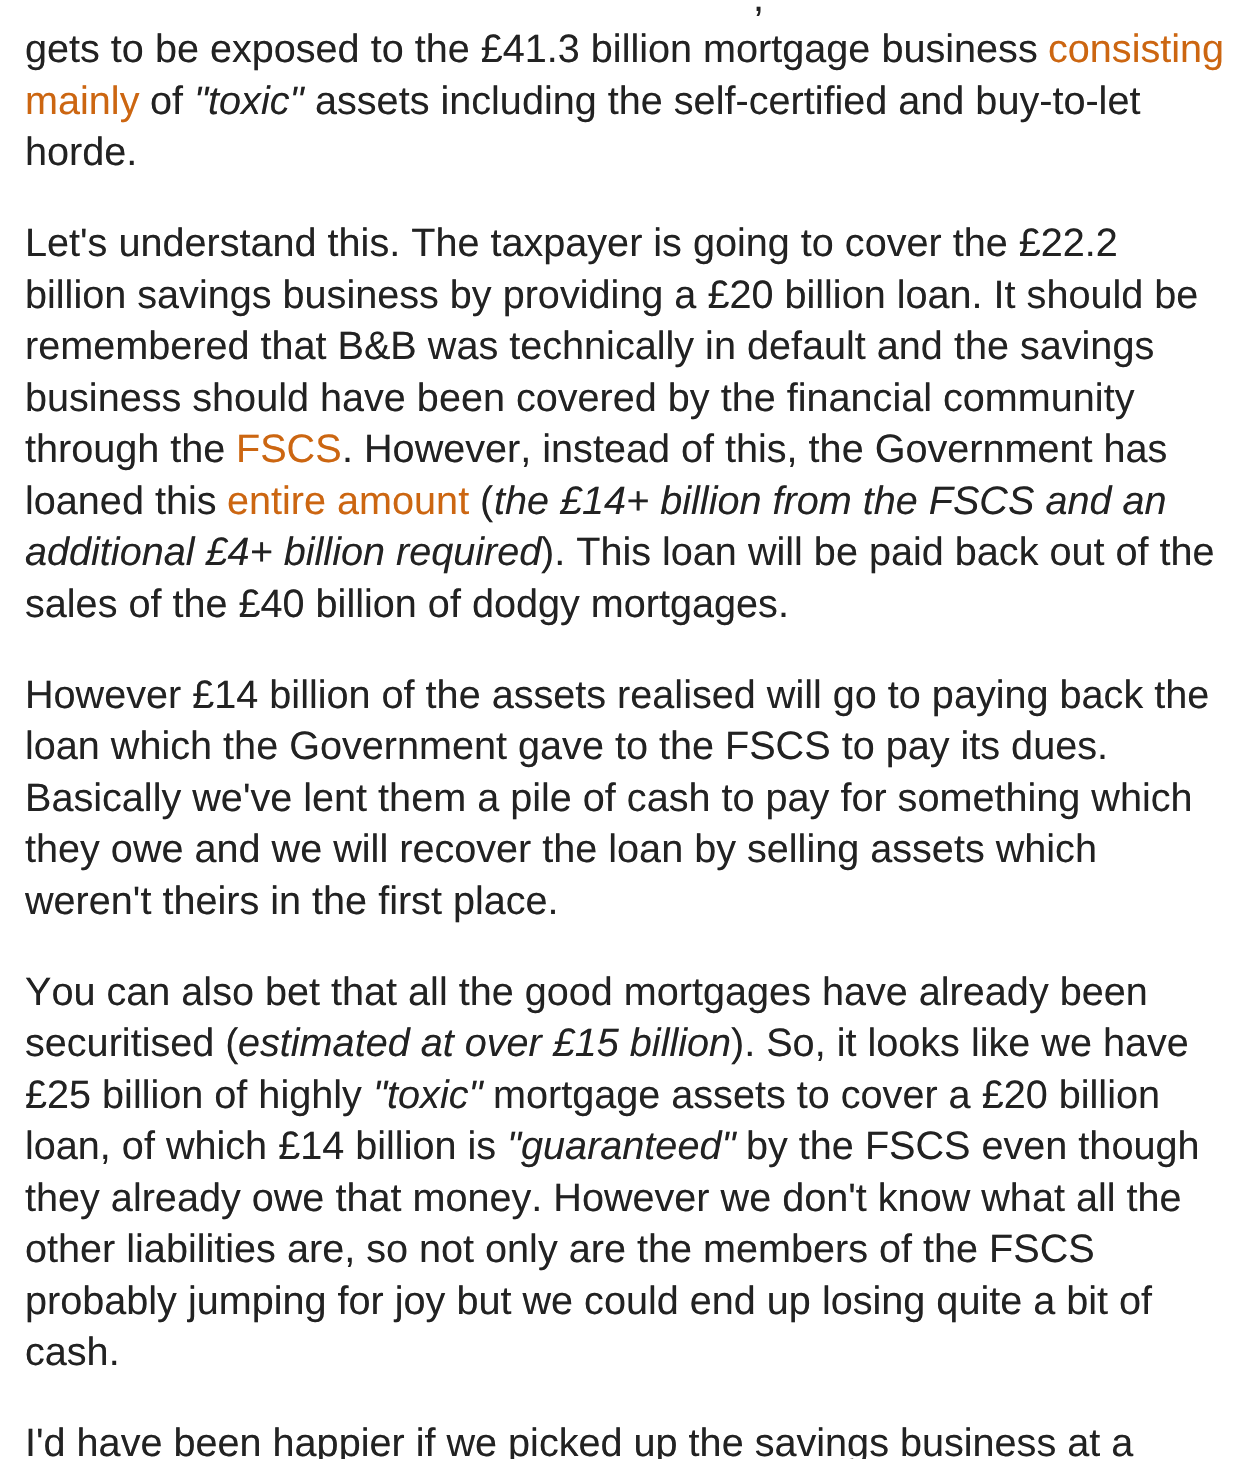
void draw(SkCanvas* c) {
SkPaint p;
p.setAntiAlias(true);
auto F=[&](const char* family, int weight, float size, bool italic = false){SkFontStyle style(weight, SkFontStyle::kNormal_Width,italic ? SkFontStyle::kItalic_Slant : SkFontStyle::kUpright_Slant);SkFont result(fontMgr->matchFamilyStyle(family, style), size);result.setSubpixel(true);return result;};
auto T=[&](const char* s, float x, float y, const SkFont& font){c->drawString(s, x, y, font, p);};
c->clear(0xffffffff);
auto f1 = F("Liberation Sans",400,39.6);
p.setColor(0xff222222);
T(",",753,11,f1);
T("gets to be exposed to the £41.3 billion mortgage business",25,62,f1);
p.setColor(0xffcc6611);
T("consisting",1048,62,f1);
T("mainly",25,114,f1);
p.setColor(0xff222222);
T("of",150,114,f1);
auto f2 = F("Liberation Sans",400,39.6,true);
T("\"toxic\"",194,114,f2);
T("assets including the self-certified and buy-to-let",315,114,f1);
T("horde.",25,165,f1);
T("Let's understand this. The taxpayer is going to cover the £22.2",25,256,f1);
T("billion savings business by providing a £20 billion loan. It should be",25,308,f1);
T("remembered that B&B was technically in default and the savings",25,359,f1);
T("business should have been covered by the financial community",25,411,f1);
T("through the",25,462,f1);
p.setColor(0xffcc6611);
T("FSCS",236,462,f1);
p.setColor(0xff222222);
T(". However, instead of this, the Government has",342,462,f1);
T("loaned this",25,514,f1);
p.setColor(0xffcc6611);
T("entire amount",227,514,f1);
p.setColor(0xff222222);
T("(",480,514,f1);
T("the £14+ billion from the FSCS and an",494,514,f2);
T("additional £4+ billion required",25,565,f2);
T("). This loan will be paid back out of the",541,565,f1);
T("sales of the £40 billion of dodgy mortgages.",25,617,f1);
T("However £14 billion of the assets realised will go to paying back the",25,708,f1);
T("loan which the Government gave to the FSCS to pay its dues.",25,759,f1);
T("Basically we've lent them a pile of cash to pay for something which",25,811,f1);
T("they owe and we will recover the loan by selling assets which",25,862,f1);
T("weren't theirs in the first place.",25,914,f1);
T("You can also bet that all the good mortgages have already been",25,1005,f1);
T("securitised (",25,1056,f1);
T("estimated at over £15 billion",238,1056,f2);
T("). So, it looks like we have",731,1056,f1);
T("£25 billion of highly",25,1108,f1);
T("\"toxic\"",373,1108,f2);
T("mortgage assets to cover a £20 billion",493,1108,f1);
T("loan, of which £14 billion is",25,1159,f1);
T("\"guaranteed\"",507,1159,f2);
T("by the FSCS even though",746,1159,f1);
T("they already owe that money. However we don't know what all the",25,1211,f1);
T("other liabilities are, so not only are the members of the FSCS",25,1262,f1);
T("probably jumping for joy but we could end up losing quite a bit of",25,1314,f1);
T("cash.",25,1365,f1);
T("I'd have been happier if we picked up the savings business at a",25,1456,f1);
}
